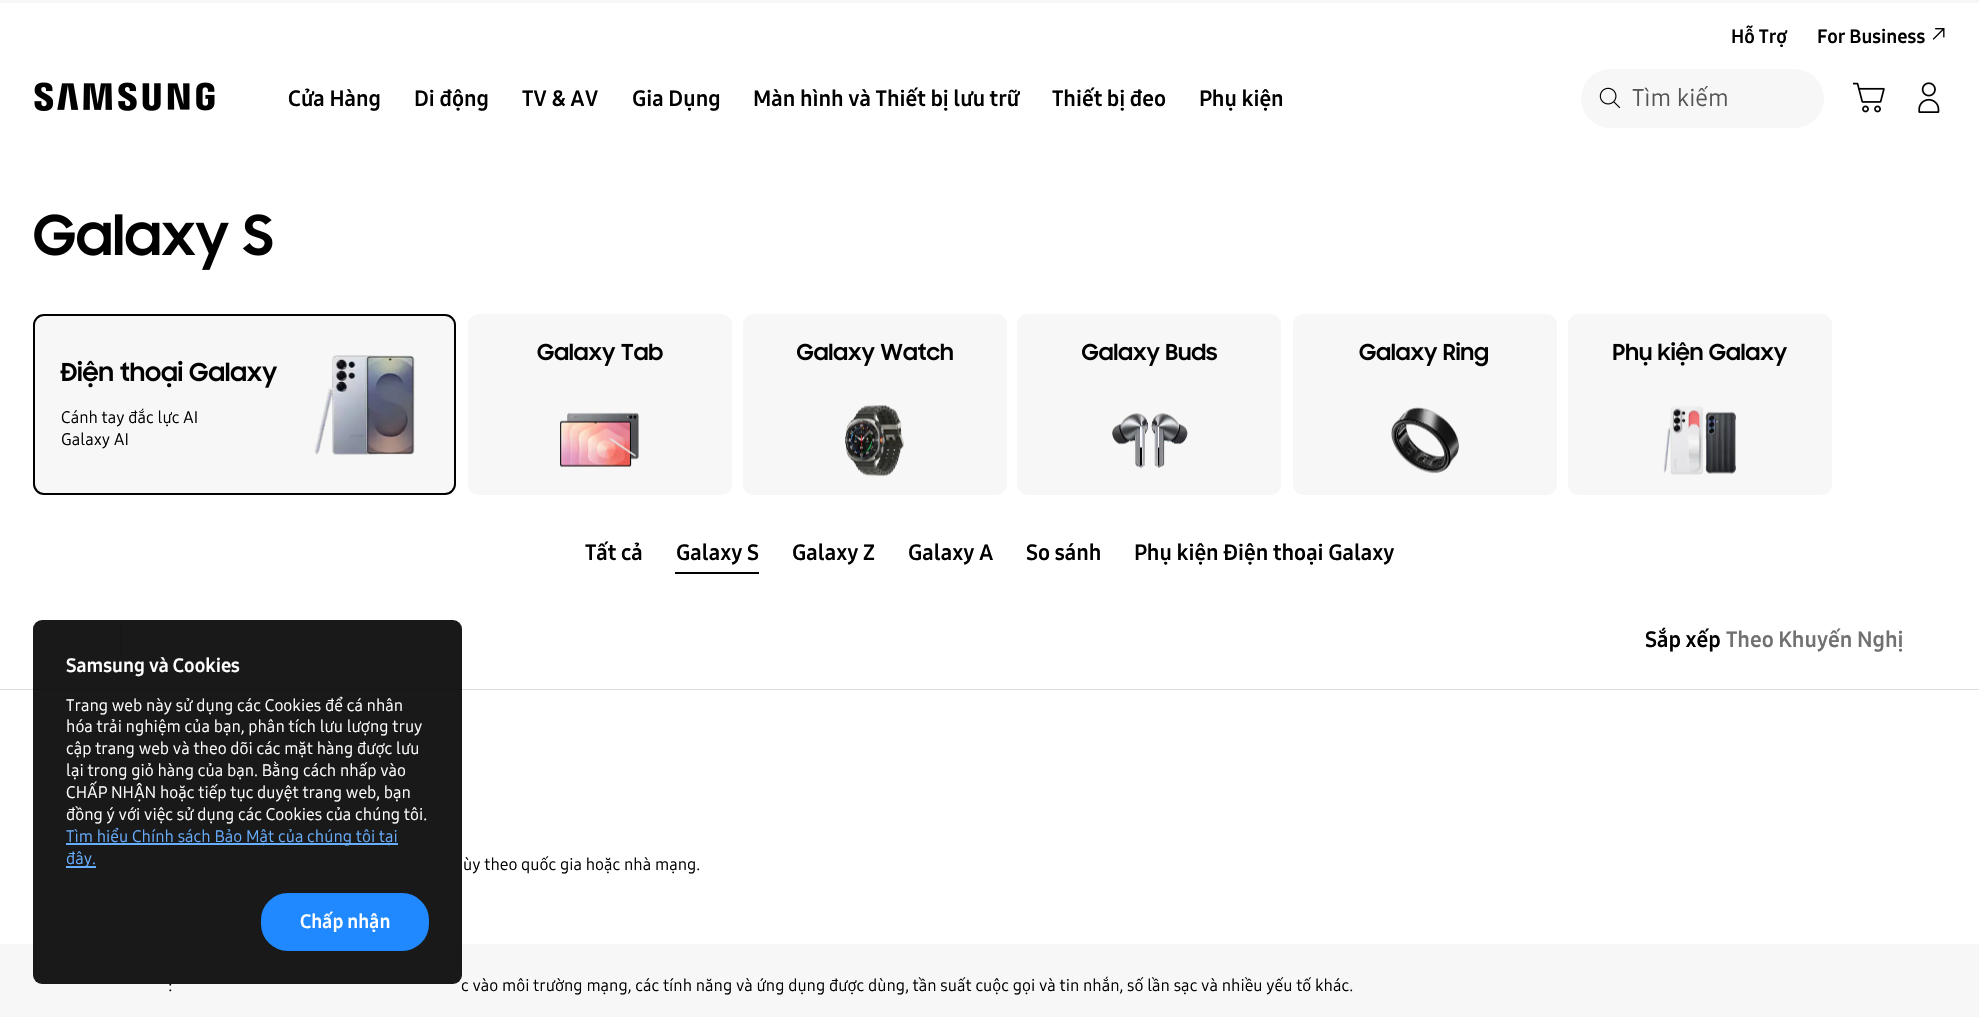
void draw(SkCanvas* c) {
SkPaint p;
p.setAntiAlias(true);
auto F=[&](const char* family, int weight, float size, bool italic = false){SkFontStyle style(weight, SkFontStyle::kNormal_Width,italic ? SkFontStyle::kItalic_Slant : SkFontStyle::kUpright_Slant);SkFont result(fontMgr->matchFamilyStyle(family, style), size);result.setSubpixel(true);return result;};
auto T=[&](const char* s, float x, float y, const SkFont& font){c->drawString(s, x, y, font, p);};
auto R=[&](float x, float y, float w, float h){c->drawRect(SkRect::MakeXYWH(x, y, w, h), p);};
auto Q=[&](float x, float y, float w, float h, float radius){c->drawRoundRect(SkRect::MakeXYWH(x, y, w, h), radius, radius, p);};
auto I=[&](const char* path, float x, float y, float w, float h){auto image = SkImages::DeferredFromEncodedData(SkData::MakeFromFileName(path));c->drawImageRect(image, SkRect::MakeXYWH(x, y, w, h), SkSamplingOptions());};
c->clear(0xffffffff);
p.setColor(0xfff7f7f7);
R(0,0,1979,3);
I("1.png",34,82,181,29);
auto f1 = F("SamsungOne",700,19.25);
p.setColor(0xff000000);
T("Hỗ Trợ",1731,43,f1);
T("For Business",1817,43,f1);
I("2.png",1932,28,13,12);
auto f2 = F("SamsungOne",700,22);
T("Cửa Hàng",288,106,f2);
T("Di động",414,106,f2);
T("TV & AV",522,106,f2);
T("Gia Dụng",632,106,f2);
T("Màn hình và Thiết bị lưu trữ",753,106,f2);
T("Thiết bị đeo",1052,106,f2);
T("Phụ kiện",1199,106,f2);
p.setColor(0xfff7f7f7);
Q(1581,69,243,59,29.5);
I("3.png",1599,87,22,22);
auto f3 = F("SamsungOne",400,24);
p.setColor(0xff555555);
T("Tìm kiếm",1632,106,f3);
I("4.png",1853,82,32,31);
I("5.png",1918,82,22,31);
I("6.png",34,214,239,56);
p.setColor(0xfff7f7f7);
c->drawRoundRect(SkRect::MakeXYWH(34,315,421,179),10,10,p);
p.setStroke(true);
p.setStrokeWidth(2);
p.setColor(0xff000000);
c->drawRoundRect(SkRect::MakeXYWH(34,315,421,179),10,10,p);
I("7.png",60,360,217,28);
auto f4 = F("SamsungOne",400,16.5);
p.setStroke(false);
T("Cánh tay đắc lực AI",61,423,f4);
T("Galaxy AI",61,445,f4);
I("8.png",314,355,101,100);
p.setColor(0xfff7f7f7);
Q(468,314,264,181,11);
I("9.png",537,343,126,23);
I("10.png",560,412,79,55);
Q(743,314,264,181,11);
I("11.png",797,343,156,23);
I("12.png",845,405,59,71);
Q(1017,314,264,181,11);
I("13.png",1082,343,135,23);
I("14.png",1112,413,76,55);
Q(1293,314,264,181,11);
I("15.png",1359,342,129,25);
I("16.png",1391,407,68,67);
Q(1568,314,264,181,11);
I("17.png",1613,342,174,24);
I("18.png",1663,406,73,69);
p.setColor(0xff000000);
T("Tất cả",585,560,f2);
T("Galaxy S",676,560,f2);
R(675,572,84,2);
T("Galaxy Z",792,560,f2);
T("Galaxy A",908,560,f2);
T("So sánh",1026,560,f2);
T("Phụ kiện Điện thoại Galaxy",1134,560,f2);
p.setColor(0xffdddddd);
R(0,689,1979,1);
R(120,623,2,33);
p.setColor(0xff000000);
T("Sắp xếp",1645,647,f2);
p.setColor(0xff717171);
T("Theo Khuyến Nghị",1726,647,f2);
p.setColor(0xff000000);
T("ùy theo quốc gia hoặc nhà mạng.",463,870,f4);
p.setColor(0xfff7f7f7);
R(0,944,1979,73);
p.setColor(0xff000000);
T(":",168,991,f4);
T("c vào môi trường mạng, các tính năng và ứng dụng được dùng, tần suất cuộc gọi và tin nhắn, số lần sạc và nhiều yếu tố khác.",461,991,f4);
p.setColor(0xe6000000);
Q(33,620,429,364,9);
p.setColor(0xffffffff);
T("Samsung và Cookies",66,672,f1);
T("Trang web này sử dụng các Cookies để cá nhân",66,711,f4);
T("hóa trải nghiệm của bạn, phân tích lưu lượng truy",66,732,f4);
T("cập trang web và theo dõi các mặt hàng được lưu",66,754,f4);
T("lại trong giỏ hàng của bạn. Bằng cách nhấp vào",66,776,f4);
T("CHẤP NHẬN hoặc tiếp tục duyệt trang web, bạn",66,798,f4);
T("đồng ý với việc sử dụng các Cookies của chúng tôi.",66,820,f4);
p.setColor(0xff68aeff);
R(66,843,332,2);
T("Tìm hiểu Chính sách Bảo Mật của chúng tôi tại",66,842,f4);
R(66,866,30,2);
T("đây.",66,864,f4);
p.setColor(0xff2189ff);
c->drawRoundRect(SkRect::MakeXYWH(262,894,166,56),26,26,p);
p.setStroke(true);
c->drawRoundRect(SkRect::MakeXYWH(262,894,166,56),26,26,p);
p.setStroke(false);
p.setColor(0xffffffff);
T("Chấp nhận",300,928,f1);
}
